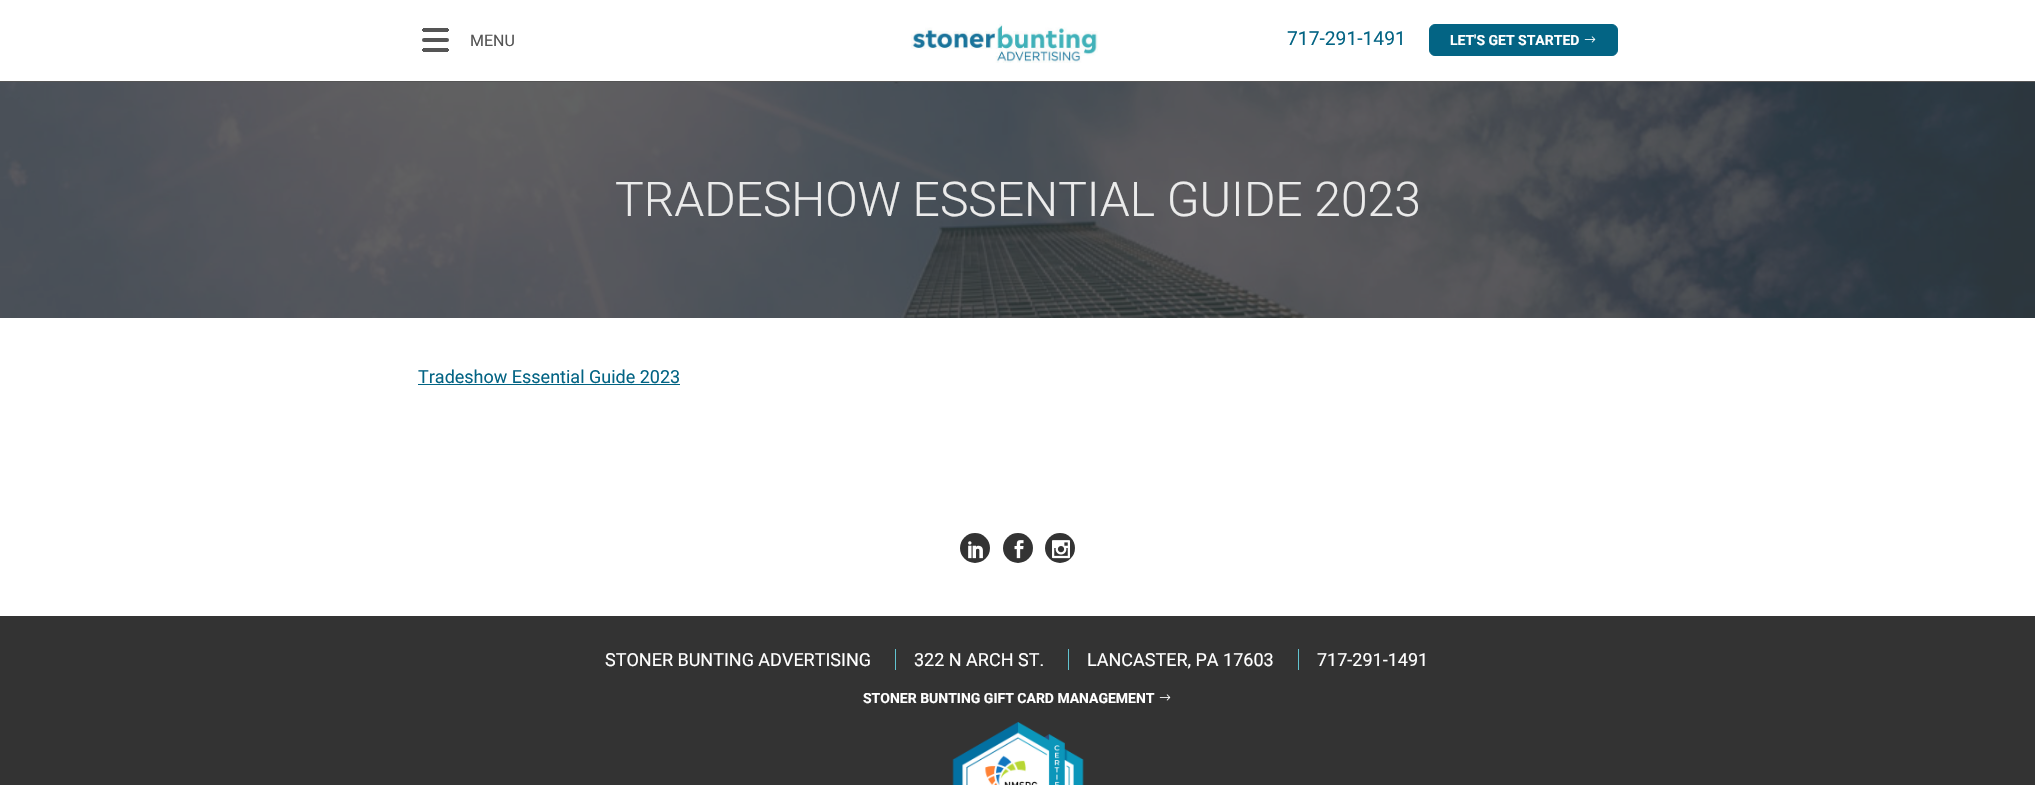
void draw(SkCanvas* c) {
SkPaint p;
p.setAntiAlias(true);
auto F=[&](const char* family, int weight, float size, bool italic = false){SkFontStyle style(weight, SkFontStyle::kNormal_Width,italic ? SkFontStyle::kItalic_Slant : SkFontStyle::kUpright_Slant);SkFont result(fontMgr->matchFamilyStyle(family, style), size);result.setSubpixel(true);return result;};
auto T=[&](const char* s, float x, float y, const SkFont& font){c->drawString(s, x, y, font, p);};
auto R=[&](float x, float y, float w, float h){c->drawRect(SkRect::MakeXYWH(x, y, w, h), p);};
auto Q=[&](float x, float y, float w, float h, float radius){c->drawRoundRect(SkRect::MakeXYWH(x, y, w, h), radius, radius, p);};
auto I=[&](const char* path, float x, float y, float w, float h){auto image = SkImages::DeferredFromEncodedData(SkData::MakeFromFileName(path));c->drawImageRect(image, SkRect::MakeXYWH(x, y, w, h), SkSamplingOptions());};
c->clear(0xffffffff);
p.setColor(0xff555555);
R(0,81,2035,1);
R(423,28,25,4);
R(445,29,4,2);
R(422,29,4,2);
Q(422,38,27,4,2);
auto f1 = F("Roboto",400,16);
T("MENU",470,46,f1);
R(445,49,4,2);
R(423,48,25,4);
R(422,49,4,2);
I("1.png",911,24,187,39);
auto f2 = F("Roboto",400,19.25);
p.setColor(0xff036484);
T("717-291-1491",1287,45,f2);
c->drawRoundRect(SkRect::MakeXYWH(1429.5,24.5,188,31),5.5,5.5,p);
p.setStroke(true);
p.setStrokeWidth(1);
c->drawRoundRect(SkRect::MakeXYWH(1429.5,24.5,188,31),5.5,5.5,p);
auto f3 = F("Roboto",700,14);
p.setStroke(false);
p.setColor(0xffffffff);
T("LET'S GET STARTED",1450,45,f3);
I("2.png",1584,36,12,7);
I("3.png",0,82,2035,236);
auto f4 = F("Roboto",300,48);
p.setColor(0xffebebeb);
T("TRADESHOW ESSENTIAL GUIDE 2023",615,216,f4);
auto f5 = F("Roboto",400,18);
p.setColor(0xff036484);
T("Tradeshow Essential Guide 2023",418,383,f5);
R(418,384,262,1);
p.setColor(0xff333333);
R(0,616,2035,169);
c->drawCircle(975,548,15,p);
I("4.png",968,541,15,18);
c->drawCircle(1018,548,15,p);
I("5.png",1014,540,10,19);
c->drawCircle(1060,548,15,p);
I("6.png",1052,540,18,19);
p.setColor(0xffffffff);
T("STONER BUNTING ADVERTISING",605,666,f5);
T("322 N ARCH ST.",914,666,f5);
p.setColor(0xff61c4d1);
R(895,649,1,21);
p.setColor(0xffffffff);
T("LANCASTER, PA 17603",1087,666,f5);
p.setColor(0xff61c4d1);
R(1068,649,1,21);
p.setColor(0xffffffff);
T("717-291-1491",1317,666,f5);
p.setColor(0xff61c4d1);
R(1298,649,1,21);
p.setColor(0xffffffff);
T("STONER BUNTING GIFT CARD MANAGEMENT",863,703,f3);
I("7.png",1159,694,12,7);
I("8.png",952,722,132,63);
}
